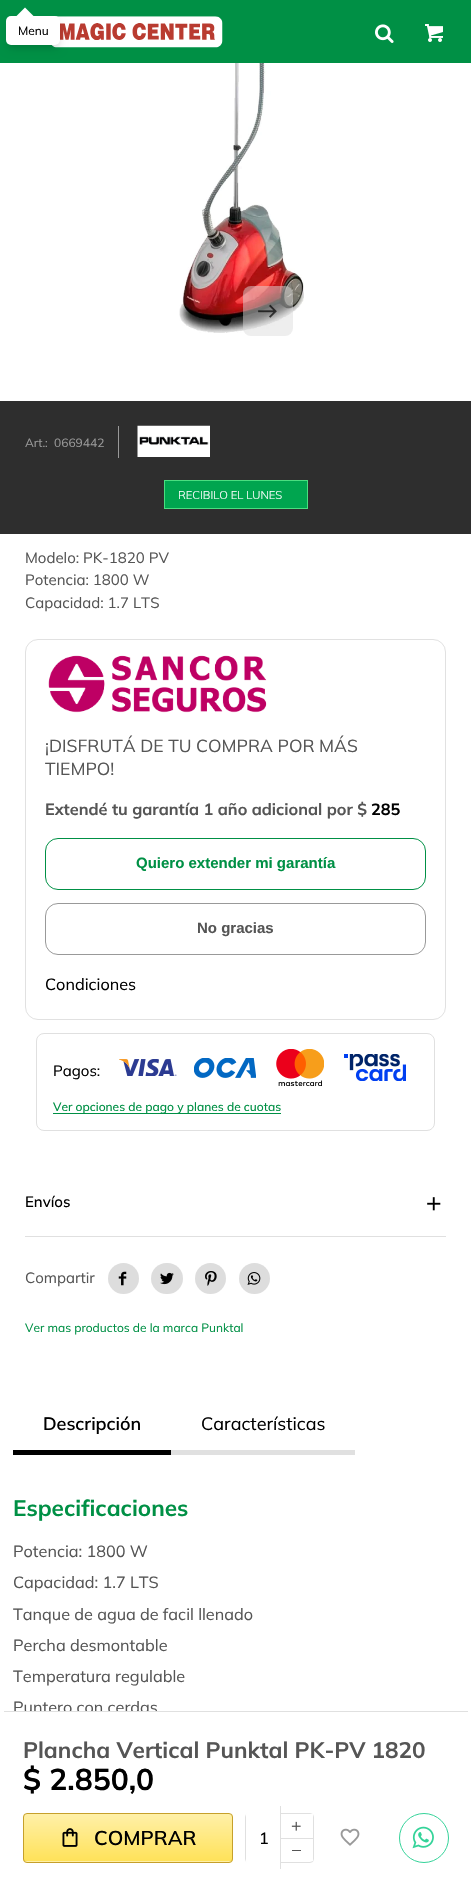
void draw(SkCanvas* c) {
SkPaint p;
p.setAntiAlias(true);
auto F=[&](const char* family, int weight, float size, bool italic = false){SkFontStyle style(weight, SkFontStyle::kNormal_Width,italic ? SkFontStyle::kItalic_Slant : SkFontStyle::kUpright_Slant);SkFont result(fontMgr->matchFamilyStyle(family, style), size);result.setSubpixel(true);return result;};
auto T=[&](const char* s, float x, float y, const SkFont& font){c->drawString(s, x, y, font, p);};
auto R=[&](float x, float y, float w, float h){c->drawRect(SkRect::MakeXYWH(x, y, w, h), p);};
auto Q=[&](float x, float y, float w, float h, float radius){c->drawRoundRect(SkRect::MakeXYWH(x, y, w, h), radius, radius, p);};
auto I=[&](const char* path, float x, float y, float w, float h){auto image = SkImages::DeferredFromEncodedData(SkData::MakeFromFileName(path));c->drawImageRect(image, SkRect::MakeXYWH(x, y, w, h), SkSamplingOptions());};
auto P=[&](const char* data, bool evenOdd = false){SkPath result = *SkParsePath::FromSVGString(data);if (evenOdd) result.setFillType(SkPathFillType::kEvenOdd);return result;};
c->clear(0xffffffff);
p.setColor(0xff009045);
R(0,0,471,63);
I("1.png",51,16,172,32);
p.setColor(0x1a000000);
p.setMaskFilter(SkMaskFilter::MakeBlur(kNormal_SkBlurStyle, 2.5));
c->drawRoundRect(SkRect::MakeXYWH(9,21,49,24),2.5,2.5,p);
p.setMaskFilter(nullptr);
p.setMaskFilter(SkMaskFilter::MakeBlur(kNormal_SkBlurStyle, 4));
c->drawRoundRect(SkRect::MakeXYWH(8,23,51,26),4,4,p);
p.setMaskFilter(nullptr);
p.setColor(0xffffffff);
Q(6,16,54,29,5);
c->drawPath(P("M35 17.5h-20l10-10z"),p);
auto f1 = F("Mulish",400,12);
p.setColor(0xff000000);
T("Menu",18,35,f1);
I("2.png",375,24,19,19);
I("3.png",425,24,18,18);
I("4.png",179,63,125,270);
p.setColor(0x7ddddddd);
Q(243,286,50,50,8);
I("5.png",258,304,19,14);
p.setColor(0xff2e2e2e);
R(0,401,471,133);
p.setColor(0xff999999);
T("Art.:",25,447,f1);
T("0669442",54,447,f1);
R(118,426,1,32);
I("6.png",137,425,73,32);
p.setColor(0xff00a54f);
c->drawRect(SkRect::MakeXYWH(164.5,480.5,143,28),p);
p.setStroke(true);
p.setStrokeWidth(1);
p.setColor(0xff4ade80);
c->drawRect(SkRect::MakeXYWH(164.5,480.5,143,28),p);
auto f2 = F("Mulish",300,11.25);
p.setStroke(false);
p.setColor(0xffffffff);
T("RECIBILO EL LUNES",178,499,f2);
auto f3 = F("Mulish",400,15);
p.setColor(0xff555555);
T("Modelo: PK-1820 PV",25,563,f3);
T("Potencia: 1800 W",25,585,f3);
T("Capacidad: 1.7 LTS",25,608,f3);
p.setStroke(true);
p.setColor(0xffe1e1e1);
c->drawRoundRect(SkRect::MakeXYWH(25.5,639.5,420,380),12.5,12.5,p);
I("7.png",48,655,219,58);
auto f4 = F("Mulish",400,17.5);
p.setStroke(false);
p.setColor(0xff555555);
T("¡DISFRUTÁ DE TU COMPRA POR MÁS",45,752,f4);
T("TIEMPO!",45,775,f4);
auto f5 = F("Mulish",700,16.25);
T("Extendé tu garantía 1 año adicional por $",45,815,f5);
p.setColor(0xff000000);
T("285",371,815,f5);
p.setStroke(true);
p.setColor(0xff009045);
c->drawRoundRect(SkRect::MakeXYWH(45.5,838.5,380,51),12.5,12.5,p);
auto f6 = F("Liberation Sans",700,15);
p.setStroke(false);
T("Quiero extender mi garantía",136,868,f6);
p.setStroke(true);
p.setColor(0xff999999);
c->drawRoundRect(SkRect::MakeXYWH(45.5,903.5,380,51),12.5,12.5,p);
p.setStroke(false);
p.setColor(0xff555555);
T("No gracias",197,933,f6);
auto f7 = F("Mulish",400,16.25);
p.setColor(0xff000000);
T("Condiciones",45,990,f7);
p.setStroke(true);
p.setColor(0xffe0e0e0);
c->drawRoundRect(SkRect::MakeXYWH(36.5,1033.5,398,97),7.5,7.5,p);
p.setStroke(false);
p.setColor(0xff000000);
T("Pagos:",53,1076,f3);
I("8.png",119,1059,58,17);
I("9.png",194,1058,62,20);
I("10.png",276,1049,48,37);
I("11.png",344,1054,62,27);
p.setColor(0xff009045);
R(53,1113,228,1);
auto f8 = F("Mulish",500,12);
T("Ver opciones de pago y planes de cuotas",53,1111,f8);
p.setColor(0xffe0e0e0);
R(25,1236,421,1);
auto f9 = F("Mulish",500,15);
p.setColor(0xff000000);
T("Envíos",25,1207,f9);
I("12.png",427,1197,14,14);
p.setColor(0xff555555);
T("Compartir",25,1283,f3);
p.setColor(0xffdddddd);
c->drawCircle(123.5,1278.5,15.5,p);
I("13.png",118,1271,9,15);
Q(151,1263,32,31,15.5);
I("14.png",160,1272,14,13);
c->drawCircle(210.5,1278.5,15.5,p);
I("15.png",205,1271,12,15);
c->drawCircle(254.5,1278.5,15.5,p);
I("16.png",247,1272,14,13);
p.setColor(0xff009045);
T("Ver mas productos de la marca Punktal",25,1332,f1);
p.setColor(0xff555555);
T("Puntero con cerdas",13,1713,f7);
p.setColor(0xffffffff);
c->drawPath(P("M8 1711h455c4.5 0 8 3.5 8 8v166h-471v-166c0-4.5 3.5-8 8-8z"),p);
p.setColor(0xffe0e0e0);
R(4,1711,464,1);
auto f10 = F("Mulish",700,22.5);
p.setColor(0xff555555);
T("Plancha Vertical Punktal PK-PV 1820",23,1758,f10);
auto f11 = F("Mulish",700,30);
p.setColor(0xff000000);
T("$ 2.850,0",23,1790,f11);
c->save();
c->clipPath(P("M27 1813h202c2 0 4 2 4 4v42c0 2-2 4-4 4h-202c-2 0-4-2-4-4v-42c0-2 2-4 4-4z"),true);
{
const SkColor colors[] = {0xfffff0a8,0xffffe259};
const float stops[] = {0,1};
const SkPoint ends[] = {{128,1814}, {128,1861}};
p.setShader(SkGradientShader::MakeLinear(ends, colors, stops, 2, SkTileMode::kClamp));
p.setAlpha(255);
}
R(23,1814,210,47);
{
const SkColor colors[] = {0xfffff0a8,0xffffe259};
const float stops[] = {0,1};
const SkPoint ends[] = {{128,1861}, {128,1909}};
p.setShader(SkGradientShader::MakeLinear(ends, colors, stops, 2, SkTileMode::kClamp));
p.setAlpha(255);
}
R(23,1861,210,2);
c->restore();
p.setStroke(true);
p.setShader(nullptr);
p.setColor(0xffc6a02b);
c->drawRoundRect(SkRect::MakeXYWH(23.5,1813.5,209,49),3.5,3.5,p);
I("17.png",62,1828,16,19);
auto f12 = F("Mulish",600,20);
p.setStroke(false);
p.setColor(0xff000000);
T("COMPRAR",94,1845,f12);
p.setStroke(true);
p.setColor(0xffe0e0e0);
c->drawRoundRect(SkRect::MakeXYWH(245.5,1813.5,68,49),3.5,3.5,p);
p.setStroke(false);
p.setColor(0xffffffff);
c->drawPath(P("M254 1806h27v63h-27c-4.5 0-8-3.5-8-8v-47c0-4.5 3.5-8 8-8z"),p);
p.setColor(0xffe0e0e0);
R(280,1806,1,63);
auto f13 = F("Mulish",500,16.25);
p.setColor(0xff000000);
T("1",259,1844,f13);
p.setColor(0xffffffff);
R(310,1814,3,47);
I("18.png",291,1821,10,10);
p.setColor(0xffe0e0e0);
R(281,1838,32,1);
p.setColor(0xff555555);
R(292,1850,9,1);
I("19.png",340,1828,20,18);
p.setStroke(true);
p.setColor(0xff34d399);
c->drawCircle(424,1838,24.5,p);
I("20.png",412,1826,22,23);
p.setStroke(false);
p.setColor(0xff000000);
R(13,1450,158,5);
auto f14 = F("Mulish",600,18);
T("Descripción",43,1430,f14);
p.setColor(0xffe0e0e0);
R(171,1450,184,5);
auto f15 = F("Mulish",400,18);
p.setColor(0xff000000);
T("Características",201,1430,f15);
p.setColor(0xff009045);
T("Especificaciones",13,1516,f10);
p.setColor(0xff555555);
T("Potencia: 1800 W",13,1557,f7);
T("Capacidad: 1.7 LTS",13,1588,f7);
T("Tanque de agua de facil llenado",13,1620,f7);
T("Percha desmontable",13,1651,f7);
T("Temperatura regulable",13,1682,f7);
}
